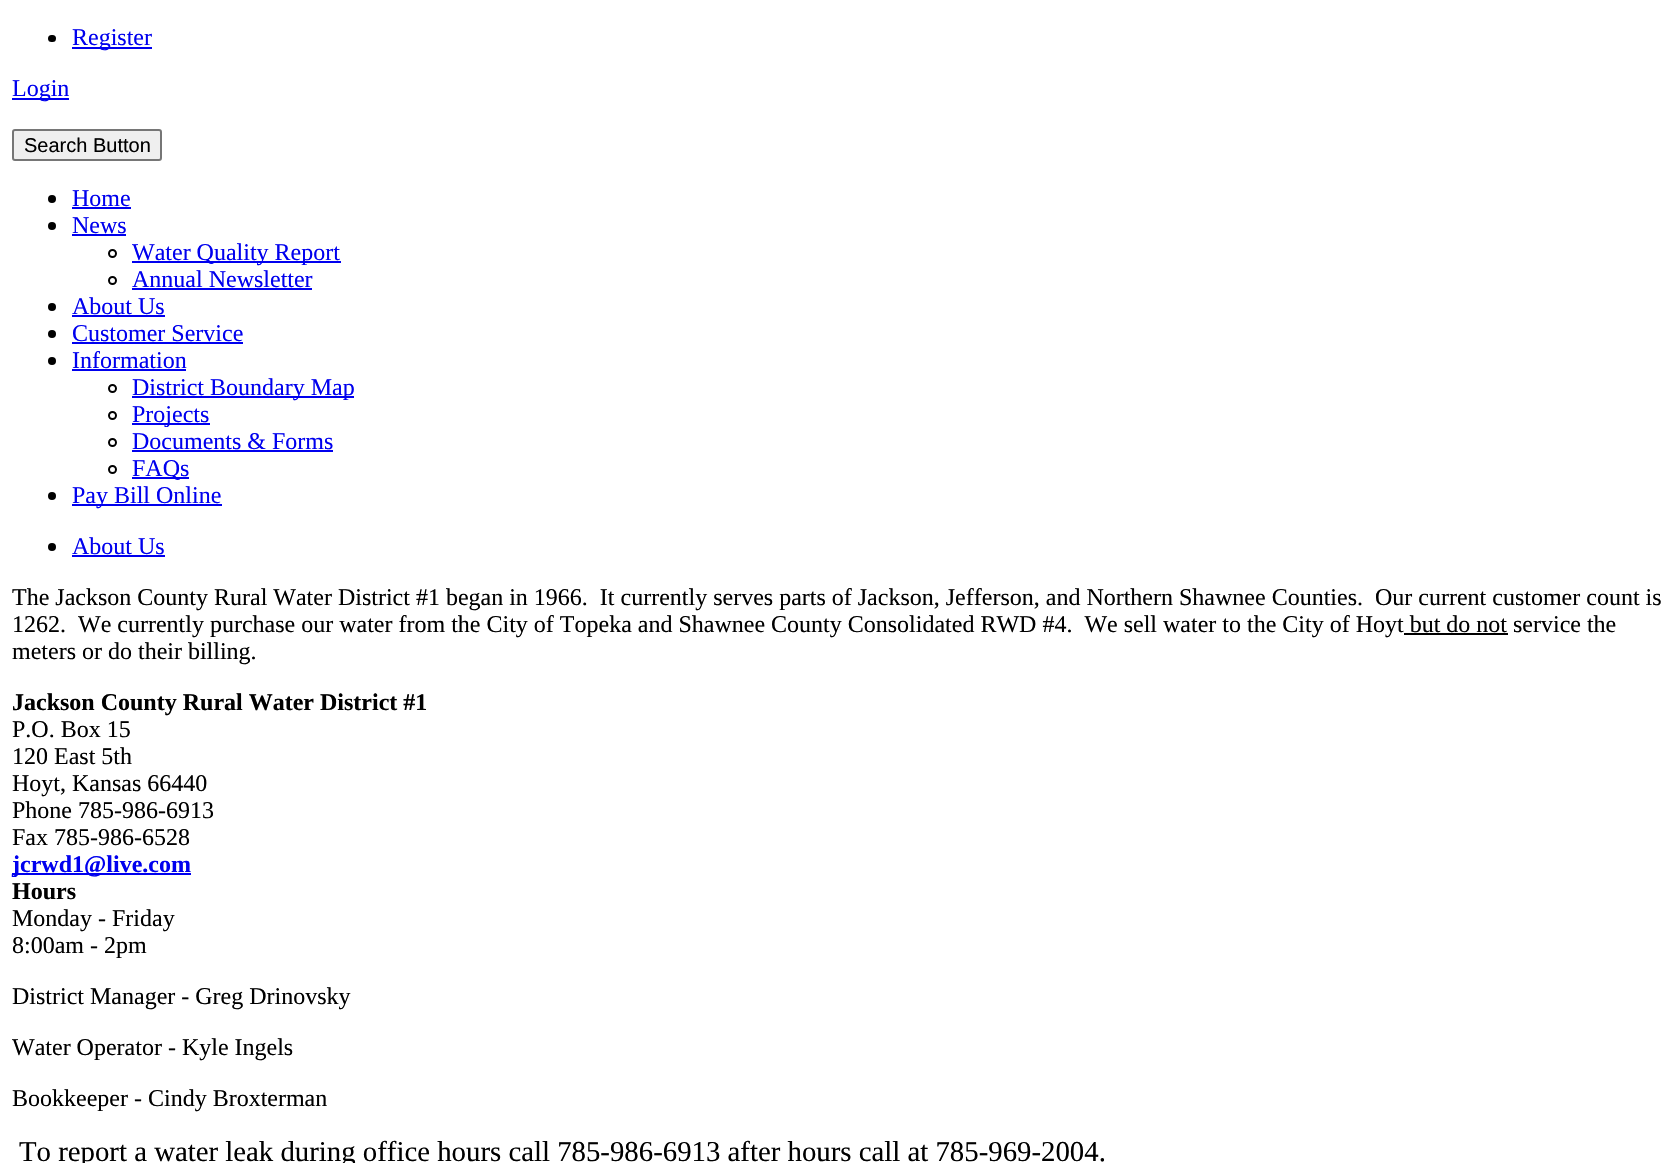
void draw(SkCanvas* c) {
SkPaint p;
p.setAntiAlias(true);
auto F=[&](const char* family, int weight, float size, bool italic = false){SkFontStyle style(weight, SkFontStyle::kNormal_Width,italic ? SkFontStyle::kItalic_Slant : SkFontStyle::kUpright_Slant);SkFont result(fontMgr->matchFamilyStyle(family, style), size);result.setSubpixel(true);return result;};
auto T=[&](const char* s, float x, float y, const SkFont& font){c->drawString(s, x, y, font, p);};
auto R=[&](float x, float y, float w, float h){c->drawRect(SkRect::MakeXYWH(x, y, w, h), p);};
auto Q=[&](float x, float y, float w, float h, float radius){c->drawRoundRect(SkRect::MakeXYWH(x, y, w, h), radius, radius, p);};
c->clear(0xffffffff);
p.setColor(0xff000000);
Q(48,35,8,7,3.5);
p.setColor(0xff0000ee);
R(72,47,80,2);
auto f1 = F("Liberation Serif",400,24);
T("Register",72,45,f1);
R(12,98,57,2);
T("Login",12,96,f1);
p.setColor(0xffefefef);
c->drawRoundRect(SkRect::MakeXYWH(13,130,148,30),2,2,p);
p.setStroke(true);
p.setStrokeWidth(2);
p.setColor(0xff767676);
c->drawRoundRect(SkRect::MakeXYWH(13,130,148,30),2,2,p);
auto f2 = F("Liberation Sans",400,20);
p.setStroke(false);
p.setColor(0xff000000);
T("Search Button",24,152,f2);
c->drawCircle(52,199,4,p);
p.setColor(0xff0000ee);
T("Home",72,206,f1);
R(72,207,59,2);
p.setColor(0xff000000);
c->drawCircle(52,226,4,p);
p.setColor(0xff0000ee);
T("News",72,233,f1);
R(72,234,54,2);
p.setStroke(true);
p.setColor(0xff000000);
c->drawCircle(112.5,253.5,3.5,p);
p.setStroke(false);
p.setColor(0xff0000ee);
R(132,261,209,2);
T("Water Quality Report",132,260,f1);
p.setStroke(true);
p.setColor(0xff000000);
c->drawCircle(112.5,280.5,3.5,p);
p.setStroke(false);
p.setColor(0xff0000ee);
T("Annual Newsletter",132,287,f1);
R(132,288,180,2);
p.setColor(0xff000000);
c->drawCircle(52,307,4,p);
p.setColor(0xff0000ee);
T("About Us",72,314,f1);
R(72,315,93,2);
p.setColor(0xff000000);
c->drawCircle(52,334,4,p);
p.setColor(0xff0000ee);
T("Customer Service",72,341,f1);
R(72,342,171,2);
p.setColor(0xff000000);
c->drawCircle(52,361,4,p);
p.setColor(0xff0000ee);
T("Information",72,368,f1);
R(72,369,114,2);
p.setStroke(true);
p.setColor(0xff000000);
c->drawCircle(112.5,388.5,3.5,p);
p.setStroke(false);
p.setColor(0xff0000ee);
R(132,396,222,2);
T("District Boundary Map",132,395,f1);
p.setStroke(true);
p.setColor(0xff000000);
c->drawCircle(112.5,415.5,3.5,p);
p.setStroke(false);
p.setColor(0xff0000ee);
R(132,423,78,2);
T("Projects",132,422,f1);
p.setStroke(true);
p.setColor(0xff000000);
c->drawCircle(112.5,442.5,3.5,p);
p.setStroke(false);
p.setColor(0xff0000ee);
T("Documents & Forms",132,449,f1);
R(132,450,201,2);
p.setStroke(true);
p.setColor(0xff000000);
c->drawCircle(112.5,469.5,3.5,p);
p.setStroke(false);
p.setColor(0xff0000ee);
R(132,477,57,2);
T("FAQs",132,476,f1);
p.setColor(0xff000000);
c->drawCircle(52,496,4,p);
p.setColor(0xff0000ee);
R(72,504,150,2);
T("Pay Bill Online",72,503,f1);
p.setColor(0xff000000);
c->drawCircle(52,547,4,p);
p.setColor(0xff0000ee);
T("About Us",72,554,f1);
R(72,555,93,2);
p.setColor(0xff000000);
T("The Jackson County Rural Water District #1 began in 1966.  It currently serves parts of Jackson, Jefferson, and Northern Shawnee Counties.  Our current customer count is",12,605,f1);
T("1262.  We currently purchase our water from the City of Topeka and Shawnee County Consolidated RWD #4.  We sell water to the City of Hoyt but do not service the",12,632,f1);
R(1404,633,104,2);
T("meters or do their billing.",12,659,f1);
auto f3 = F("Liberation Serif",700,24);
T("Jackson County Rural Water District #1",12,710,f3);
T("P.O. Box 15",12,737,f1);
T("120 East 5th",12,764,f1);
T("Hoyt, Kansas 66440",12,791,f1);
T("Phone 785-986-6913",12,818,f1);
T("Fax 785-986-6528",12,845,f1);
p.setColor(0xff0000ee);
R(12,873,179,2);
T("jcrwd1@live.com",12,872,f3);
p.setColor(0xff000000);
T("Hours",12,899,f3);
T("Monday - Friday",12,926,f1);
T("8:00am - 2pm",12,953,f1);
T("District Manager - Greg Drinovsky",12,1004,f1);
T("Water Operator - Kyle Ingels",12,1055,f1);
T("Bookkeeper - Cindy Broxterman",12,1106,f1);
auto f4 = F("Liberation Serif",400,28.8);
T("To report a water leak during office hours call 785-986-6913 after hours call at 785-969-2004.",19,1161,f4);
}
